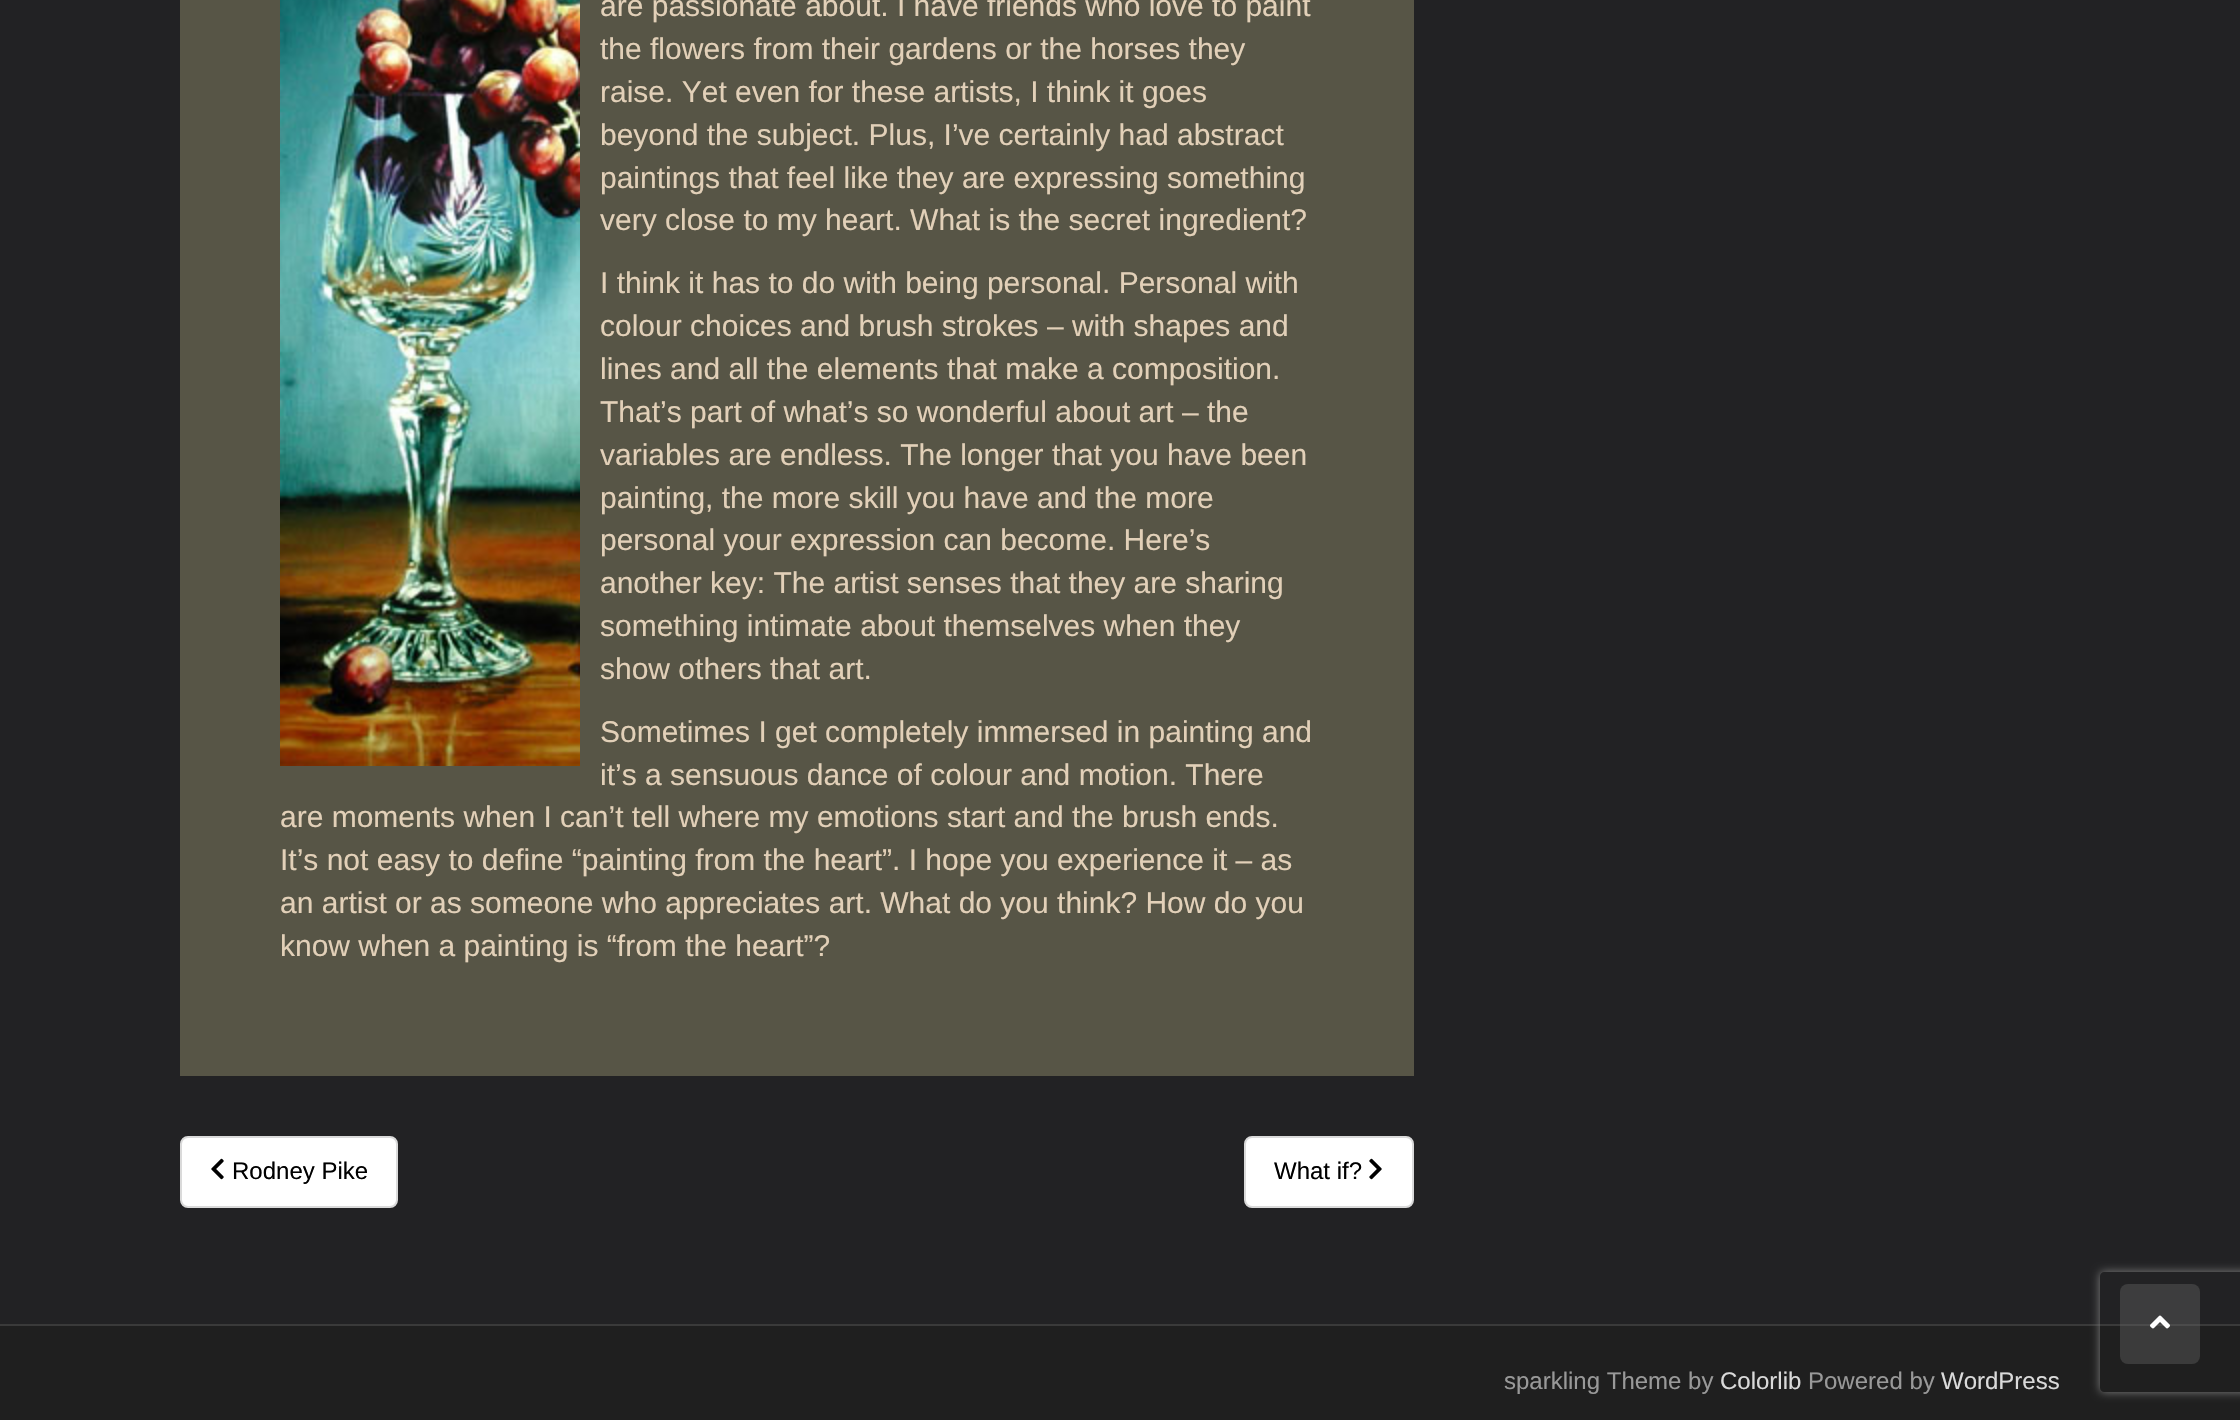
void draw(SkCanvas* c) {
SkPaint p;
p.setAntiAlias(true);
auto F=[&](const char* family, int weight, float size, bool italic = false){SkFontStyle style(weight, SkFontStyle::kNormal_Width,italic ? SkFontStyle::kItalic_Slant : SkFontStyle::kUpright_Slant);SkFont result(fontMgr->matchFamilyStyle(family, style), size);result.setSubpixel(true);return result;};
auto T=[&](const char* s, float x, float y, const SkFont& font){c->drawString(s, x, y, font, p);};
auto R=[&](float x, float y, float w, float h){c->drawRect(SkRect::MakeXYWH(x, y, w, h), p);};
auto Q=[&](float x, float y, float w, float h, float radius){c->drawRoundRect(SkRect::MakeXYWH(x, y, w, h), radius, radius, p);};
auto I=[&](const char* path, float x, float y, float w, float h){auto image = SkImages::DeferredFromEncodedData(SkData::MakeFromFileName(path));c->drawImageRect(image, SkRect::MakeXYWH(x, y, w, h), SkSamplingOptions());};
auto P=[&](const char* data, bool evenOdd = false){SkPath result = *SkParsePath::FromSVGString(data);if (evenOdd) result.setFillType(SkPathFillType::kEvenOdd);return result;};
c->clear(0xff222224);
p.setColor(0xff575546);
R(180,0,1234,1076);
I("1.png",280,0,300,766);
auto f1 = F("Liberation Sans",400,30);
p.setColor(0xffe2d0b8);
T("are passionate about. I have friends who love to paint",600,16,f1);
T("the flowers from their gardens or the horses they",600,59,f1);
T("raise. Yet even for these artists, I think it goes",600,102,f1);
T("beyond the subject. Plus, I’ve certainly had abstract",600,145,f1);
T("paintings that feel like they are expressing something",600,188,f1);
T("very close to my heart. What is the secret ingredient?",600,230,f1);
T("I think it has to do with being personal. Personal with",600,293,f1);
T("colour choices and brush strokes – with shapes and",600,336,f1);
T("lines and all the elements that make a composition.",600,379,f1);
T("That’s part of what’s so wonderful about art – the",600,422,f1);
T("variables are endless. The longer that you have been",600,465,f1);
T("painting, the more skill you have and the more",600,508,f1);
T("personal your expression can become. Here’s",600,550,f1);
T("another key: The artist senses that they are sharing",600,593,f1);
T("something intimate about themselves when they",600,636,f1);
T("show others that art.",600,679,f1);
T("Sometimes I get completely immersed in painting and",600,742,f1);
T("it’s a sensuous dance of colour and motion. There",600,785,f1);
T("are moments when I can’t tell where my emotions start and the brush ends.",280,827,f1);
T("It’s not easy to define “painting from the heart”. I hope you experience it – as",280,870,f1);
T("an artist or as someone who appreciates art. What do you think? How do you",280,913,f1);
T("know when a painting is “from the heart”?",280,956,f1);
p.setColor(0xffffffff);
c->drawRoundRect(SkRect::MakeXYWH(181,1137,216,70),7,7,p);
p.setStroke(true);
p.setStrokeWidth(2);
p.setColor(0xffdadada);
c->drawRoundRect(SkRect::MakeXYWH(181,1137,216,70),7,7,p);
I("2.png",211,1158,13,22);
auto f2 = F("Liberation Sans",400,24);
p.setStroke(false);
p.setColor(0xff000000);
T("Rodney Pike",232,1179,f2);
p.setColor(0xffffffff);
c->drawRoundRect(SkRect::MakeXYWH(1245,1137,168,70),7,7,p);
p.setStroke(true);
p.setColor(0xffdadada);
c->drawRoundRect(SkRect::MakeXYWH(1245,1137,168,70),7,7,p);
p.setStroke(false);
p.setColor(0xff000000);
T("What if?",1274,1179,f2);
I("3.png",1369,1158,13,22);
p.setColor(0xff1f1f1f);
R(0,1326,2240,94);
p.setColor(0xff3a3a3a);
R(0,1324,2240,2);
c->save();
c->clipPath(P("M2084 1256h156v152h-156zm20 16h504c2 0 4 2 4 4v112c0 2-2 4-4 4h-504c-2 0-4-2-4-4v-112c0-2 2-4 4-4z",true),true);
p.setColor(0xff808080);
p.setMaskFilter(SkMaskFilter::MakeBlur(kNormal_SkBlurStyle, 5));
c->drawRoundRect(SkRect::MakeXYWH(2100,1272,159,120),4,4,p);
p.setMaskFilter(nullptr);
c->restore();
p.setColor(0x66646464);
Q(2120,1284,80,80,8);
I("4.png",2150,1315,20,14);
p.setColor(0xff999999);
T("sparkling Theme by",1504,1389,f2);
p.setColor(0xffdadada);
T("Colorlib",1720,1389,f2);
p.setColor(0xff999999);
T("Powered by",1808,1389,f2);
p.setColor(0xffdadada);
T("WordPress",1941,1389,f2);
}
